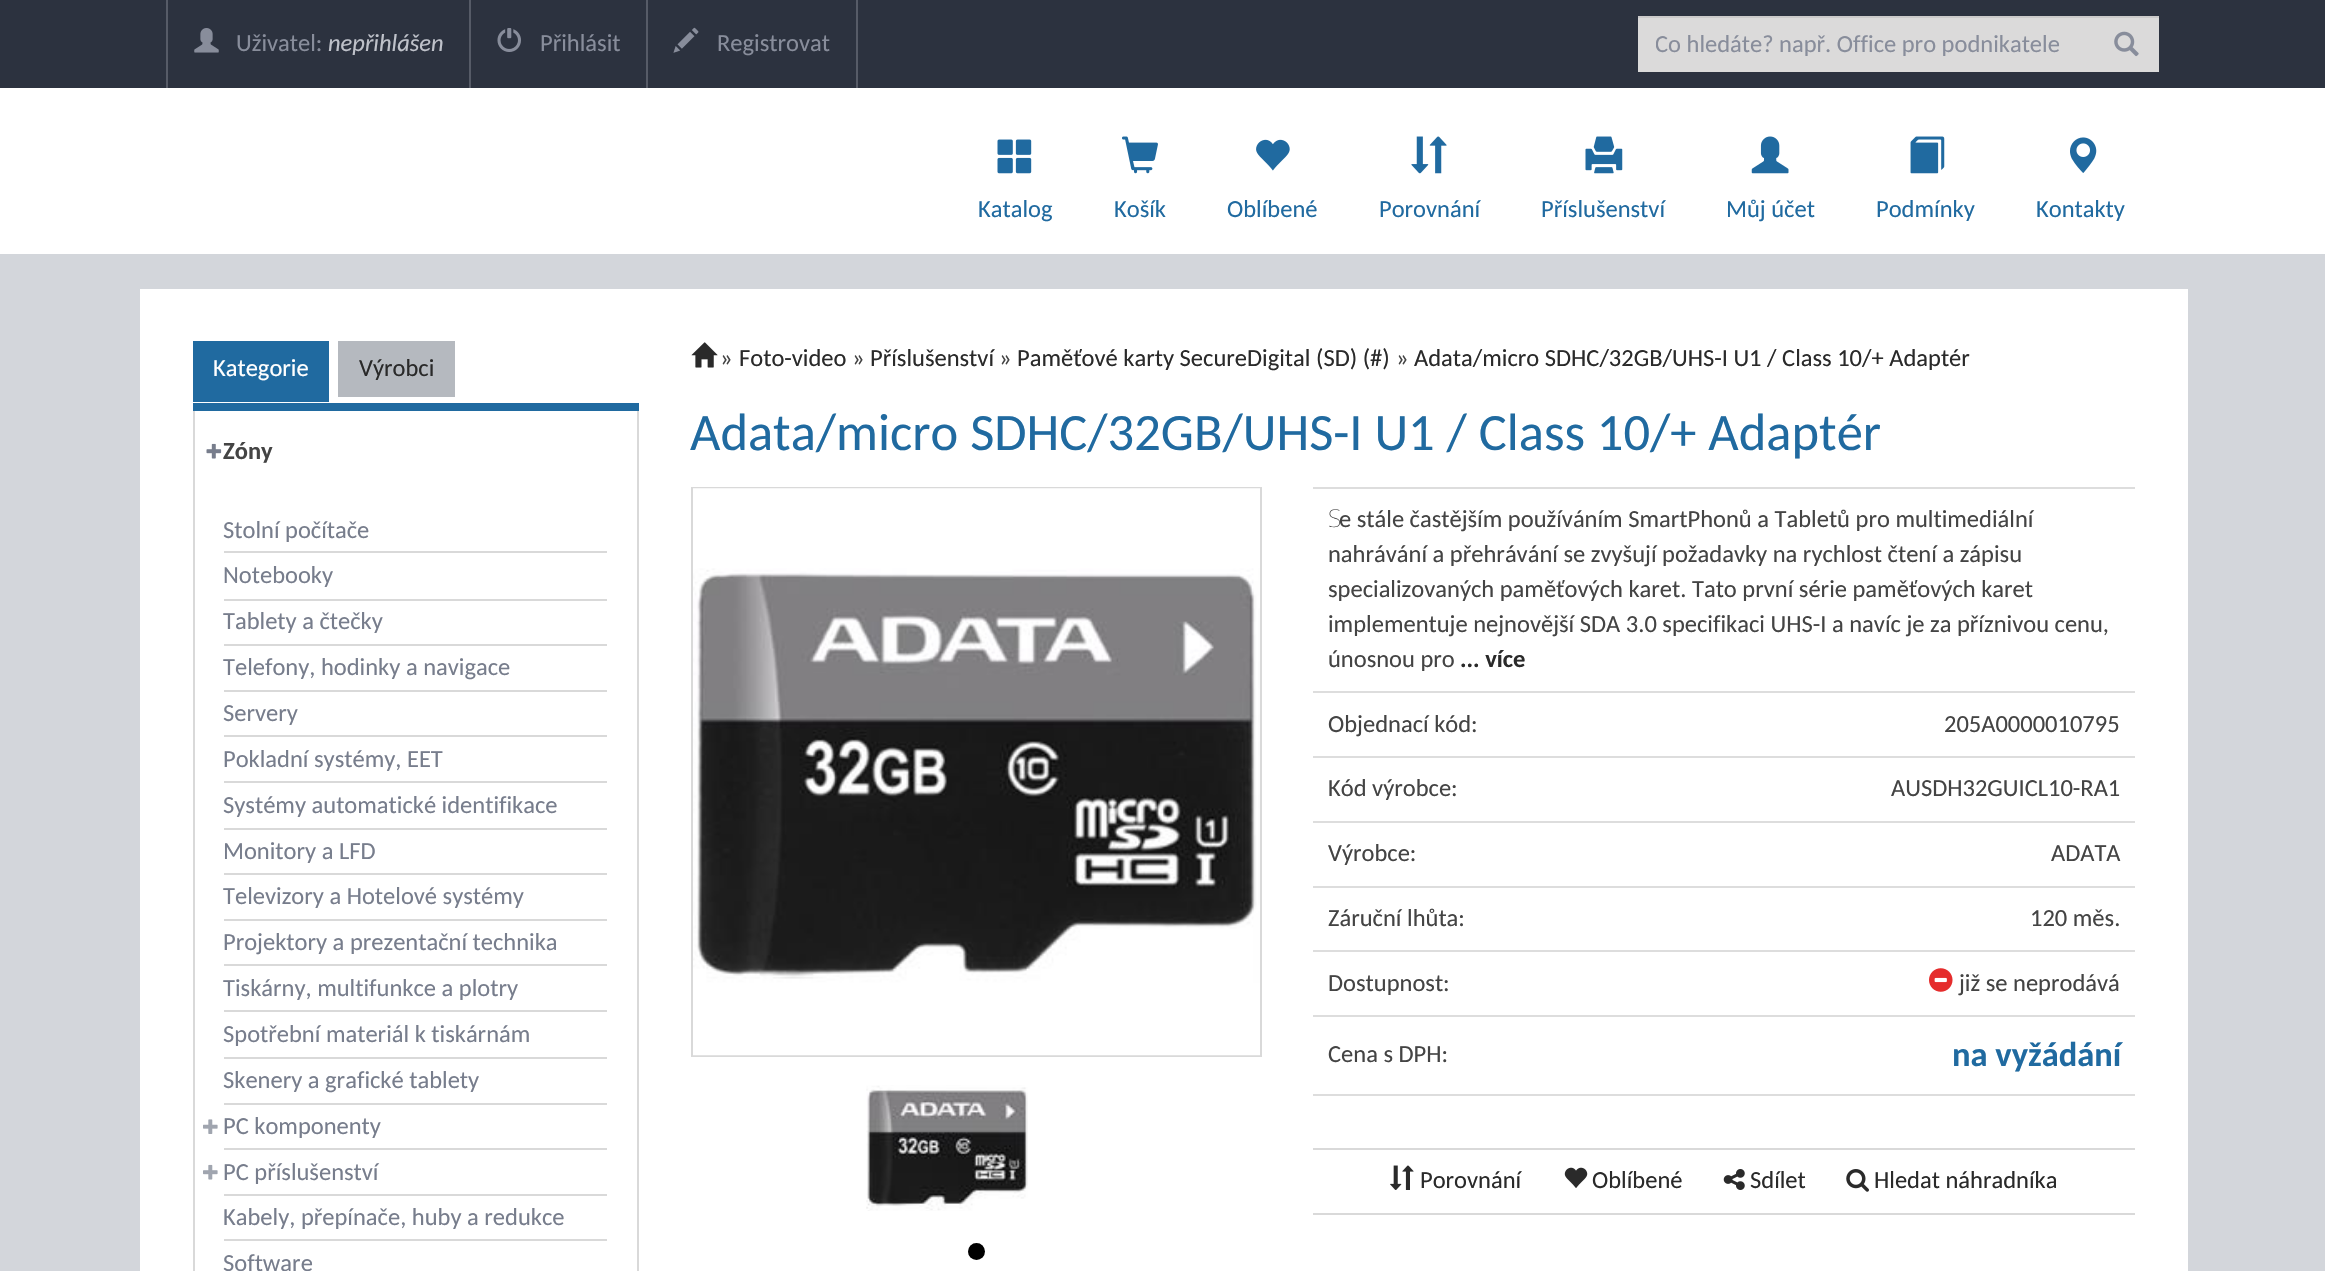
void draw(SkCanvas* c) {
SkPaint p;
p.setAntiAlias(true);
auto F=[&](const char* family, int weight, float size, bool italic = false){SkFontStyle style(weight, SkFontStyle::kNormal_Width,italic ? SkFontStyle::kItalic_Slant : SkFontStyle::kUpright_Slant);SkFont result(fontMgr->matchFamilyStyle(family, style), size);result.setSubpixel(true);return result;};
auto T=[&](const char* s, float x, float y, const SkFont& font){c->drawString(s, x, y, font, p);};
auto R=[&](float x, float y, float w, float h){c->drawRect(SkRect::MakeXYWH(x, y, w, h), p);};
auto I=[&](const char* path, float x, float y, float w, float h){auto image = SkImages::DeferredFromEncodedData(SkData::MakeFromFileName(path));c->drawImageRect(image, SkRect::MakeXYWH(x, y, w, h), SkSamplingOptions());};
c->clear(0xffd3d6db);
p.setColor(0xff2c323f);
R(0,0,2325,88);
p.setColor(0xff565b67);
R(166,0,2,88);
I("1.png",194,28,25,25);
auto f1 = F("Carlito",400,24.5);
p.setColor(0xff888d9b);
T("Uživatel:",236,51,f1);
auto f2 = F("Carlito",400,24.5,true);
p.setColor(0xffbfc2ca);
T("nepřihlášen",328,51,f2);
p.setColor(0xff565b67);
R(469,0,2,88);
I("2.png",497,28,24,24);
p.setColor(0xff888d9b);
T("Přihlásit",540,51,f1);
p.setColor(0xff565b67);
R(856,0,2,88);
R(646,0,2,88);
I("3.png",673,27,26,26);
p.setColor(0xff888d9b);
T("Registrovat",717,51,f1);
p.setColor(0xffdbdada);
R(1638,18,521,54);
p.setColor(0xffcbcaca);
R(1638,16,522,2);
p.setStroke(true);
p.setStrokeWidth(2);
p.setColor(0xff2c323f);
c->drawRect(SkRect::MakeXYWH(1637,15,523,58),p);
c->save();
c->clipRect(SkRect::MakeXYWH(1656,30,442,30));
p.setStroke(false);
p.setColor(0xff888d9b);
T("Co hledáte? např. Office pro podnikatele",1655,52,f1);
c->restore();
I("4.png",2114,31,25,26);
p.setColor(0xffffffff);
R(0,88,2325,166);
I("5.png",997,139,35,35);
p.setColor(0xff206aa0);
T("Katalog",978,217,f1);
I("6.png",1122,136,36,38);
T("Košík",1114,217,f1);
I("7.png",1256,139,34,32);
T("Oblíbené",1227,217,f1);
I("8.png",1411,136,36,38);
T("Porovnání",1379,217,f1);
I("9.png",1585,136,38,38);
T("Příslušenství",1541,217,f1);
I("10.png",1751,136,38,38);
T("Můj účet",1726,217,f1);
I("11.png",1910,136,35,38);
T("Podmínky",1876,217,f1);
I("12.png",2070,137,27,36);
T("Kontakty",2036,217,f1);
p.setColor(0xffffffff);
R(140,289,2048,982);
p.setColor(0xff206aa0);
R(193,403,446,8);
R(193,341,136,61);
p.setColor(0xffffffff);
T("Kategorie",213,376,f1);
p.setColor(0xffb5b9bf);
R(338,341,117,56);
p.setColor(0xff2a2a2a);
T("Výrobci",359,376,f1);
p.setColor(0xffd9d9d9);
R(637,411,2,860);
R(193,411,2,860);
I("13.png",206,443,16,16);
auto f3 = F("Carlito",700,24.5);
p.setColor(0xff444444);
T("Zóny",223,459,f3);
p.setColor(0xffd9d9d9);
R(224,551,383,2);
p.setColor(0xff777d8c);
T("Stolní počítače",223,538,f1);
p.setColor(0xffd9d9d9);
R(224,599,383,2);
p.setColor(0xff777d8c);
T("Notebooky",223,583,f1);
p.setColor(0xffd9d9d9);
R(224,644,383,2);
p.setColor(0xff777d8c);
T("Tablety a čtečky",223,629,f1);
p.setColor(0xffd9d9d9);
R(224,690,383,2);
p.setColor(0xff777d8c);
T("Telefony, hodinky a navigace",223,675,f1);
p.setColor(0xffd9d9d9);
R(224,735,383,2);
p.setColor(0xff777d8c);
T("Servery",223,721,f1);
p.setColor(0xffd9d9d9);
R(224,781,383,2);
p.setColor(0xff777d8c);
T("Pokladní systémy, EET",223,767,f1);
p.setColor(0xffd9d9d9);
R(224,828,383,2);
p.setColor(0xff777d8c);
T("Systémy automatické identifikace",223,813,f1);
p.setColor(0xffd9d9d9);
R(224,873,383,2);
p.setColor(0xff777d8c);
T("Monitory a LFD",223,859,f1);
p.setColor(0xffd9d9d9);
R(224,919,383,2);
p.setColor(0xff777d8c);
T("Televizory a Hotelové systémy",223,904,f1);
p.setColor(0xffd9d9d9);
R(224,964,383,2);
p.setColor(0xff777d8c);
T("Projektory a prezentační technika",223,950,f1);
p.setColor(0xffd9d9d9);
R(224,1010,383,2);
p.setColor(0xff777d8c);
T("Tiskárny, multifunkce a plotry",223,996,f1);
p.setColor(0xffd9d9d9);
R(224,1057,383,2);
p.setColor(0xff777d8c);
T("Spotřební materiál k tiskárnám",223,1042,f1);
p.setColor(0xffd9d9d9);
R(224,1103,383,2);
p.setColor(0xff777d8c);
T("Skenery a grafické tablety",223,1088,f1);
p.setColor(0xffd9d9d9);
R(224,1148,383,2);
I("14.png",203,1119,15,15);
p.setColor(0xff777d8c);
T("PC komponenty",223,1134,f1);
p.setColor(0xffd9d9d9);
R(224,1194,383,2);
I("15.png",203,1164,15,16);
p.setColor(0xff777d8c);
T("PC příslušenství",223,1180,f1);
p.setColor(0xffd9d9d9);
R(224,1239,383,2);
p.setColor(0xff777d8c);
T("Kabely, přepínače, huby a redukce",223,1225,f1);
T("Software",223,1271,f1);
I("16.png",691,342,27,26);
p.setColor(0xff444444);
T("»",720,366,f1);
p.setColor(0xff2a2a2a);
T("Foto-video",739,366,f1);
p.setColor(0xff444444);
T("»",852,366,f1);
p.setColor(0xff2a2a2a);
T("Příslušenství",870,366,f1);
p.setColor(0xff444444);
T("»",999,366,f1);
p.setColor(0xff2a2a2a);
T("Paměťové karty SecureDigital (SD) (#)",1017,366,f1);
p.setColor(0xff444444);
T("»",1396,366,f1);
p.setColor(0xff2a2a2a);
T("Adata/micro SDHC/32GB/UHS-I U1 / Class 10/+ Adaptér",1414,366,f1);
auto f4 = F("Carlito",400,52.5);
p.setColor(0xff206aa0);
T("Adata/micro SDHC/32GB/UHS-I U1 / Class 10/+ Adaptér",690,450,f4);
p.setStroke(true);
p.setColor(0xffd9d9d9);
c->drawRect(SkRect::MakeXYWH(692,488,569,568),p);
I("17.png",693,488,567,568);
I("18.png",866,1085,162,126);
p.setStroke(false);
p.setColor(0xff000000);
c->drawCircle(976.5,1251.5,8.5,p);
p.setColor(0xffdddddd);
R(1313,487,822,2);
auto f5 = F("Noto Sans",100,24.5);
p.setColor(0xff444444);
T("S",1328,527,f5);
T("e stále častějším používáním SmartPhonů a Tabletů pro multimediální",1339,527,f1);
T("nahrávání a přehrávání se zvyšují požadavky na rychlost čtení a zápisu",1328,562,f1);
T("specializovaných paměťových karet. Tato první série paměťových karet",1328,597,f1);
T("implementuje nejnovější SDA 3.0 specifikaci UHS-I a navíc je za příznivou cenu,",1328,632,f1);
T("únosnou pro",1328,667,f1);
p.setColor(0xff2a2a2a);
T("... více",1460,667,f3);
p.setColor(0xff444444);
T("Objednací kód:",1328,732,f1);
p.setColor(0xffdddddd);
R(1313,691,822,2);
p.setColor(0xff444444);
T("205A0000010795",1944,732,f1);
T("Kód výrobce:",1328,796,f1);
p.setColor(0xffdddddd);
R(1313,756,822,2);
p.setColor(0xff444444);
T("AUSDH32GUICL10-RA1",1891,796,f1);
T("Výrobce:",1328,861,f1);
p.setColor(0xffdddddd);
R(1313,821,822,2);
p.setColor(0xff444444);
T("ADATA",2051,861,f1);
T("Záruční lhůta:",1328,926,f1);
p.setColor(0xffdddddd);
R(1313,886,822,2);
p.setColor(0xff444444);
T("120 měs.",2030,926,f1);
T("Dostupnost:",1328,991,f1);
p.setColor(0xffdddddd);
R(1313,950,822,2);
I("19.png",1929,968,24,24);
p.setColor(0xff444444);
T("již se neprodává",1959,991,f1);
T("Cena s DPH:",1328,1062,f1);
p.setColor(0xffdddddd);
R(1313,1015,822,2);
auto f6 = F("Carlito",700,34.5);
p.setColor(0xff206aa0);
T("na vyžádání",1952,1066,f6);
p.setColor(0xffdddddd);
R(1313,1094,822,2);
p.setColor(0xffd9d9d9);
R(1313,1148,822,2);
R(1313,1213,822,2);
I("20.png",1390,1165,24,25);
p.setColor(0xff2a2a2a);
T("Porovnání",1420,1188,f1);
I("21.png",1564,1167,24,21);
T("Oblíbené",1592,1188,f1);
I("22.png",1723,1169,22,21);
T("Sdílet",1750,1188,f1);
I("23.png",1846,1169,23,23);
T("Hledat náhradníka",1874,1188,f1);
}
